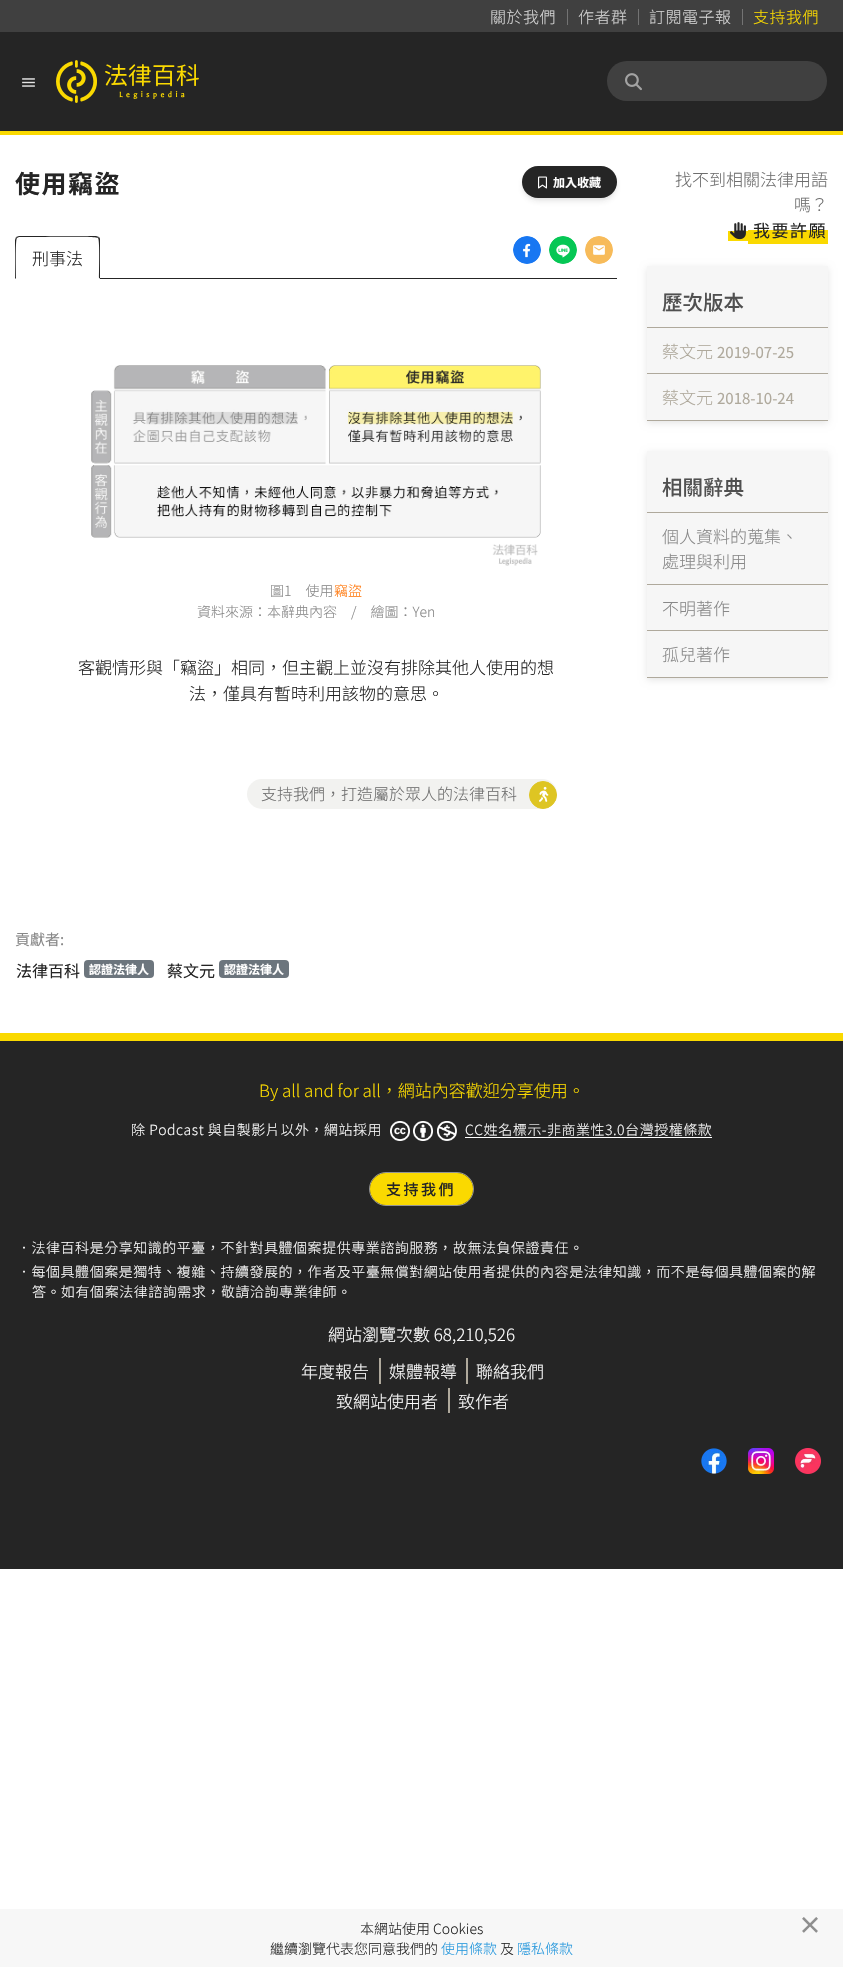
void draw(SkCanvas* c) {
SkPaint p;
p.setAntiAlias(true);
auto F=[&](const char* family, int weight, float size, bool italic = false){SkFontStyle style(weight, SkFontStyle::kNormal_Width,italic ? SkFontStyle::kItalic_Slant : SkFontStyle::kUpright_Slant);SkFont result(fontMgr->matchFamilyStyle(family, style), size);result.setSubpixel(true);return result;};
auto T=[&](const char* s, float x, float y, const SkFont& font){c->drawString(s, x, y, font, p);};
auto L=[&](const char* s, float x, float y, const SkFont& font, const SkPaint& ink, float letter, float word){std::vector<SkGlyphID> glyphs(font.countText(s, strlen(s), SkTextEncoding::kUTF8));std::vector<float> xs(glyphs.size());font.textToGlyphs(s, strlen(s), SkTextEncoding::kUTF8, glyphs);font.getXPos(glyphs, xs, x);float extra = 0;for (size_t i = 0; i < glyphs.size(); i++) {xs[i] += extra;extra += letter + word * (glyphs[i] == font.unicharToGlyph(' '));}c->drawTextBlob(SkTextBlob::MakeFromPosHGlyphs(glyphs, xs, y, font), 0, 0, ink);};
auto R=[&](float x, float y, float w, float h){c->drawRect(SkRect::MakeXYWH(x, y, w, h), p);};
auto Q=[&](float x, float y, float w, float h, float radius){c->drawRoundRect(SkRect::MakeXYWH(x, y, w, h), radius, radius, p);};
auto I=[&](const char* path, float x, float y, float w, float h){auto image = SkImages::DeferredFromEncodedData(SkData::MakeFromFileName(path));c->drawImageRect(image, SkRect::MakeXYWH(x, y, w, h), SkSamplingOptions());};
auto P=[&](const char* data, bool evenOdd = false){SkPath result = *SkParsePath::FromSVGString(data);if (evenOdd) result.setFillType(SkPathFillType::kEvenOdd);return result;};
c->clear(0xffffffff);
p.setColor(0xff404040);
R(0,0,843,32);
auto f1 = F("Noto Sans TC",300,16);
p.setColor(0xffd4d4d4);
L("關於我們",490,23,f1,p,.5,0);
p.setColor(0xff737373);
R(567,9,1,16);
p.setColor(0xffd4d4d4);
L("作者群",578,23,f1,p,.5,0);
p.setColor(0xff737373);
R(638,9,1,16);
p.setColor(0xffd4d4d4);
L("訂閱電子報",649,23,f1,p,.5,0);
p.setColor(0xff737373);
R(742,9,1,16);
p.setColor(0xfffad900);
L("支持我們",753,23,f1,p,.5,0);
p.setColor(0xff252525);
R(0,32,843,99);
p.setColor(0xfffad900);
R(0,131,843,4);
I("1.png",22,78,13,9);
I("2.png",56,60,41,43);
I("3.png",105,64,94,35);
p.setColor(0xff404040);
Q(607,61,220,40,20);
I("4.png",625,73,17,18);
auto f2 = F("Noto Sans TC",700,25);
p.setColor(0xff252525);
L("使用竊盜",15,193,f2,p,1.5,0);
p.setColor(0x1a212121);
p.setMaskFilter(SkMaskFilter::MakeBlur(kNormal_SkBlurStyle, 2));
c->drawRoundRect(SkRect::MakeXYWH(524,170,91,28),14,14,p);
p.setMaskFilter(nullptr);
p.setMaskFilter(SkMaskFilter::MakeBlur(kNormal_SkBlurStyle, 3));
c->drawRoundRect(SkRect::MakeXYWH(523,171,93,30),15,15,p);
p.setMaskFilter(nullptr);
p.setColor(0xff252525);
Q(522,166,95,32,16);
I("5.png",538,176,9,13);
auto f3 = F("Noto Sans TC",700,12);
p.setColor(0xffffffff);
T("加入收藏",553,187,f3);
p.setColor(0xff252525);
R(100,278,517,1);
c->drawPath(P("M19 236l-3 1l1 1l2-1h13c7 0 64-1 66 1l1-1l-3-1z"),p);
c->drawPath(P("M100 279v-39c0-1 0-2-1-3l-1 1c2 2 1 35 1 40z"),p);
p.setColor(0xffffffff);
c->drawPath(P("M100 279l-1-1h-83l-1 1z"),p);
p.setColor(0xff252525);
c->drawPath(P("M15 279l1-1c0-5-1-38 1-40l-1-1l-1 3z"),p);
auto f4 = F("Noto Sans TC",300,17);
T("刑事法",32,265,f4);
I("6.png",513,236,28,28);
I("7.png",549,236,28,28);
I("8.png",585,236,28,28);
I("9.png",91,365,450,201);
auto f5 = F("Noto Sans TC",300,14);
p.setColor(0xff888888);
T("圖1　使用",270,596,f5);
p.setColor(0xffff790e);
T("竊盜",334,596,f5);
p.setColor(0xff888888);
T("資料來源：本辭典內容　/　繪圖：Yen",197,617,f5);
p.setColor(0xff252525);
T("客觀情形與「竊盜」相同，但主觀上並沒有排除其他人使用的想",78,674,f4);
T("法，僅具有暫時利用該物的意思。",189,700,f4);
p.setColor(0xfff2f2f0);
Q(247,779,310,30,15);
p.setColor(0xff6e6e6e);
T("支持我們，打造屬於眾人的法律百科",261,800,f1);
p.setColor(0xffdec523);
c->drawCircle(543,795,13.5,p);
p.setStroke(true);
p.setStrokeWidth(1);
c->drawCircle(543,795,13.5,p);
I("10.png",539,786,10,16);
auto f6 = F("Noto Sans TC",400,15);
p.setStroke(false);
p.setColor(0xff888888);
T("貢獻者:",15,945,f6);
auto f7 = F("Noto Sans TC",400,16);
p.setColor(0xff252525);
T("法律百科",16,977,f7);
p.setColor(0xff6c757d);
Q(84,960,70,18,4);
p.setColor(0xffffffff);
T("認證法律人",89,974,f3);
p.setColor(0xff252525);
T("蔡文元",167,977,f7);
p.setColor(0xff6c757d);
Q(219,960,70,18,4);
p.setColor(0xffffffff);
T("認證法律人",224,974,f3);
p.setColor(0xff6e6e6e);
T("找不到相關法律用語",675,186,f4);
T("嗎？",794,211,f4);
{
const SkColor colors[] = {0xffffffff,0xffffffff,0xfffad900,0xfffad900,0xffffffff};
const float stops[] = {0,.53,.53,1,1};
const SkPoint ends[] = {{738,220}, {738,241}};
p.setShader(SkGradientShader::MakeLinear(ends, colors, stops, 5, SkTileMode::kClamp));
p.setAlpha(255);
}
R(728,231,20,10);
{
const SkColor colors[] = {0xffffffff,0xffffffff,0xfffad900,0xfffad900,0xffffffff};
const float stops[] = {0,.53,.53,1,1};
const SkPoint ends[] = {{788,215}, {788,244}};
p.setShader(SkGradientShader::MakeLinear(ends, colors, stops, 5, SkTileMode::kClamp));
p.setAlpha(255);
}
R(748,230,80,14);
I("11.png",730,222,16,18);
auto f8 = F("Noto Sans TC",400,17);
p.setShader(nullptr);
p.setColor(0xff252525);
L("我要許願",753,237,f8,p,1.5,0);
p.setColor(0x1a000000);
p.setMaskFilter(SkMaskFilter::MakeBlur(kNormal_SkBlurStyle, 3.5));
c->drawRect(SkRect::MakeXYWH(647,268,181,155),p);
p.setMaskFilter(nullptr);
p.setColor(0xfff6f6f6);
R(647,266,181,154);
p.setColor(0xffafa99c);
R(647,327,181,1);
auto f9 = F("Noto Sans TC",500,20.5);
p.setColor(0xff505050);
T("歷次版本",662,310,f9);
p.setColor(0xffafa99c);
R(647,373,181,1);
T("蔡文元",662,358,f4);
T("2019-07-25",717,358,f6);
R(647,420,181,1);
T("蔡文元",662,404,f4);
T("2018-10-24",717,404,f6);
p.setColor(0x1a000000);
p.setMaskFilter(SkMaskFilter::MakeBlur(kNormal_SkBlurStyle, 3.5));
c->drawRect(SkRect::MakeXYWH(647,453,181,227),p);
p.setMaskFilter(nullptr);
p.setColor(0xfff6f6f6);
R(647,451,181,226);
p.setColor(0xffafa99c);
R(647,512,181,1);
p.setColor(0xff505050);
T("相關辭典",662,495,f9);
p.setColor(0xffafa99c);
R(647,584,181,1);
p.setColor(0xff888888);
T("個人資料的蒐集、",662,543,f4);
T("處理與利用",662,568,f4);
p.setColor(0xffafa99c);
R(647,630,181,1);
p.setColor(0xff888888);
T("不明著作",662,615,f4);
p.setColor(0xffafa99c);
R(647,677,181,1);
p.setColor(0xff888888);
T("孤兒著作",662,661,f4);
p.setColor(0xff252525);
R(0,1041,843,528);
p.setColor(0xfffad900);
R(0,1033,843,8);
T("By all and for all，網站內容歡迎分享使用。",259,1097,f4);
p.setColor(0xffffffff);
L("除 Podcast 與自製影片以外，網站採用",131,1135,f5,p,.53,0);
I("12.png",390,1121,20,20);
I("13.png",413,1121,20,20);
I("14.png",437,1121,20,20);
L("CC姓名標示-非商業性3.0台灣授權條款",465,1135,f5,p,.53,0);
R(465,1137,247,1);
p.setStroke(true);
p.setColor(0xff949494);
c->drawRoundRect(SkRect::MakeXYWH(369.5,1172.5,104,33),16.5,16.5,p);
p.setStroke(false);
p.setColor(0xfffad900);
Q(370,1173,103,32,16);
auto f10 = F("Noto Sans TC",500,15);
p.setColor(0xff252525);
L("支持我們",386,1195,f10,p,2.5,0);
p.setColor(0xffffffff);
L("．法律百科是分享知識的平臺，不針對具體個案提供專業諮詢服務，故無法負保證責任。",17,1253,f5,p,.53,0);
L("．每個具體個案是獨特、複雜、持續發展的，作者及平臺無償對網站使用者提供的內容是法律知識，而不是每個具體個案的解",17,1277,f5,p,.53,0);
L("答。如有個案法律諮詢需求，敬請洽詢專業律師。",32,1297,f5,p,.53,0);
T("網站瀏覽次數 68,210,526",328,1341,f4);
T("年度報告",301,1378,f4);
p.setColor(0xffafa99c);
R(379,1358,2,26);
p.setColor(0xffffffff);
T("媒體報導",389,1378,f4);
p.setColor(0xffafa99c);
R(466,1358,2,26);
p.setColor(0xffffffff);
T("聯絡我們",476,1378,f4);
T("致網站使用者",336,1408,f4);
p.setColor(0xffafa99c);
R(448,1388,2,25);
p.setColor(0xffffffff);
T("致作者",458,1408,f4);
I("15.png",701,1448,26,26);
I("16.png",748,1448,26,26);
I("17.png",795,1448,26,26);
p.setColor(0xfff7f7f7);
R(0,1909,843,58);
p.setColor(0xff252525);
T("本網站使用 Cookies",360,1934,f5);
auto f11 = F("Noto Sans TC",700,24);
p.setColor(0xff8e8e8e);
T("×",798,1934,f11);
p.setColor(0xff252525);
T("繼續瀏覽代表您同意我們的",270,1954,f5);
p.setColor(0xff2497dd);
T("使用條款",441,1954,f5);
p.setColor(0xff252525);
T("及",500,1954,f5);
p.setColor(0xff2497dd);
T("隱私條款",517,1954,f5);
}
